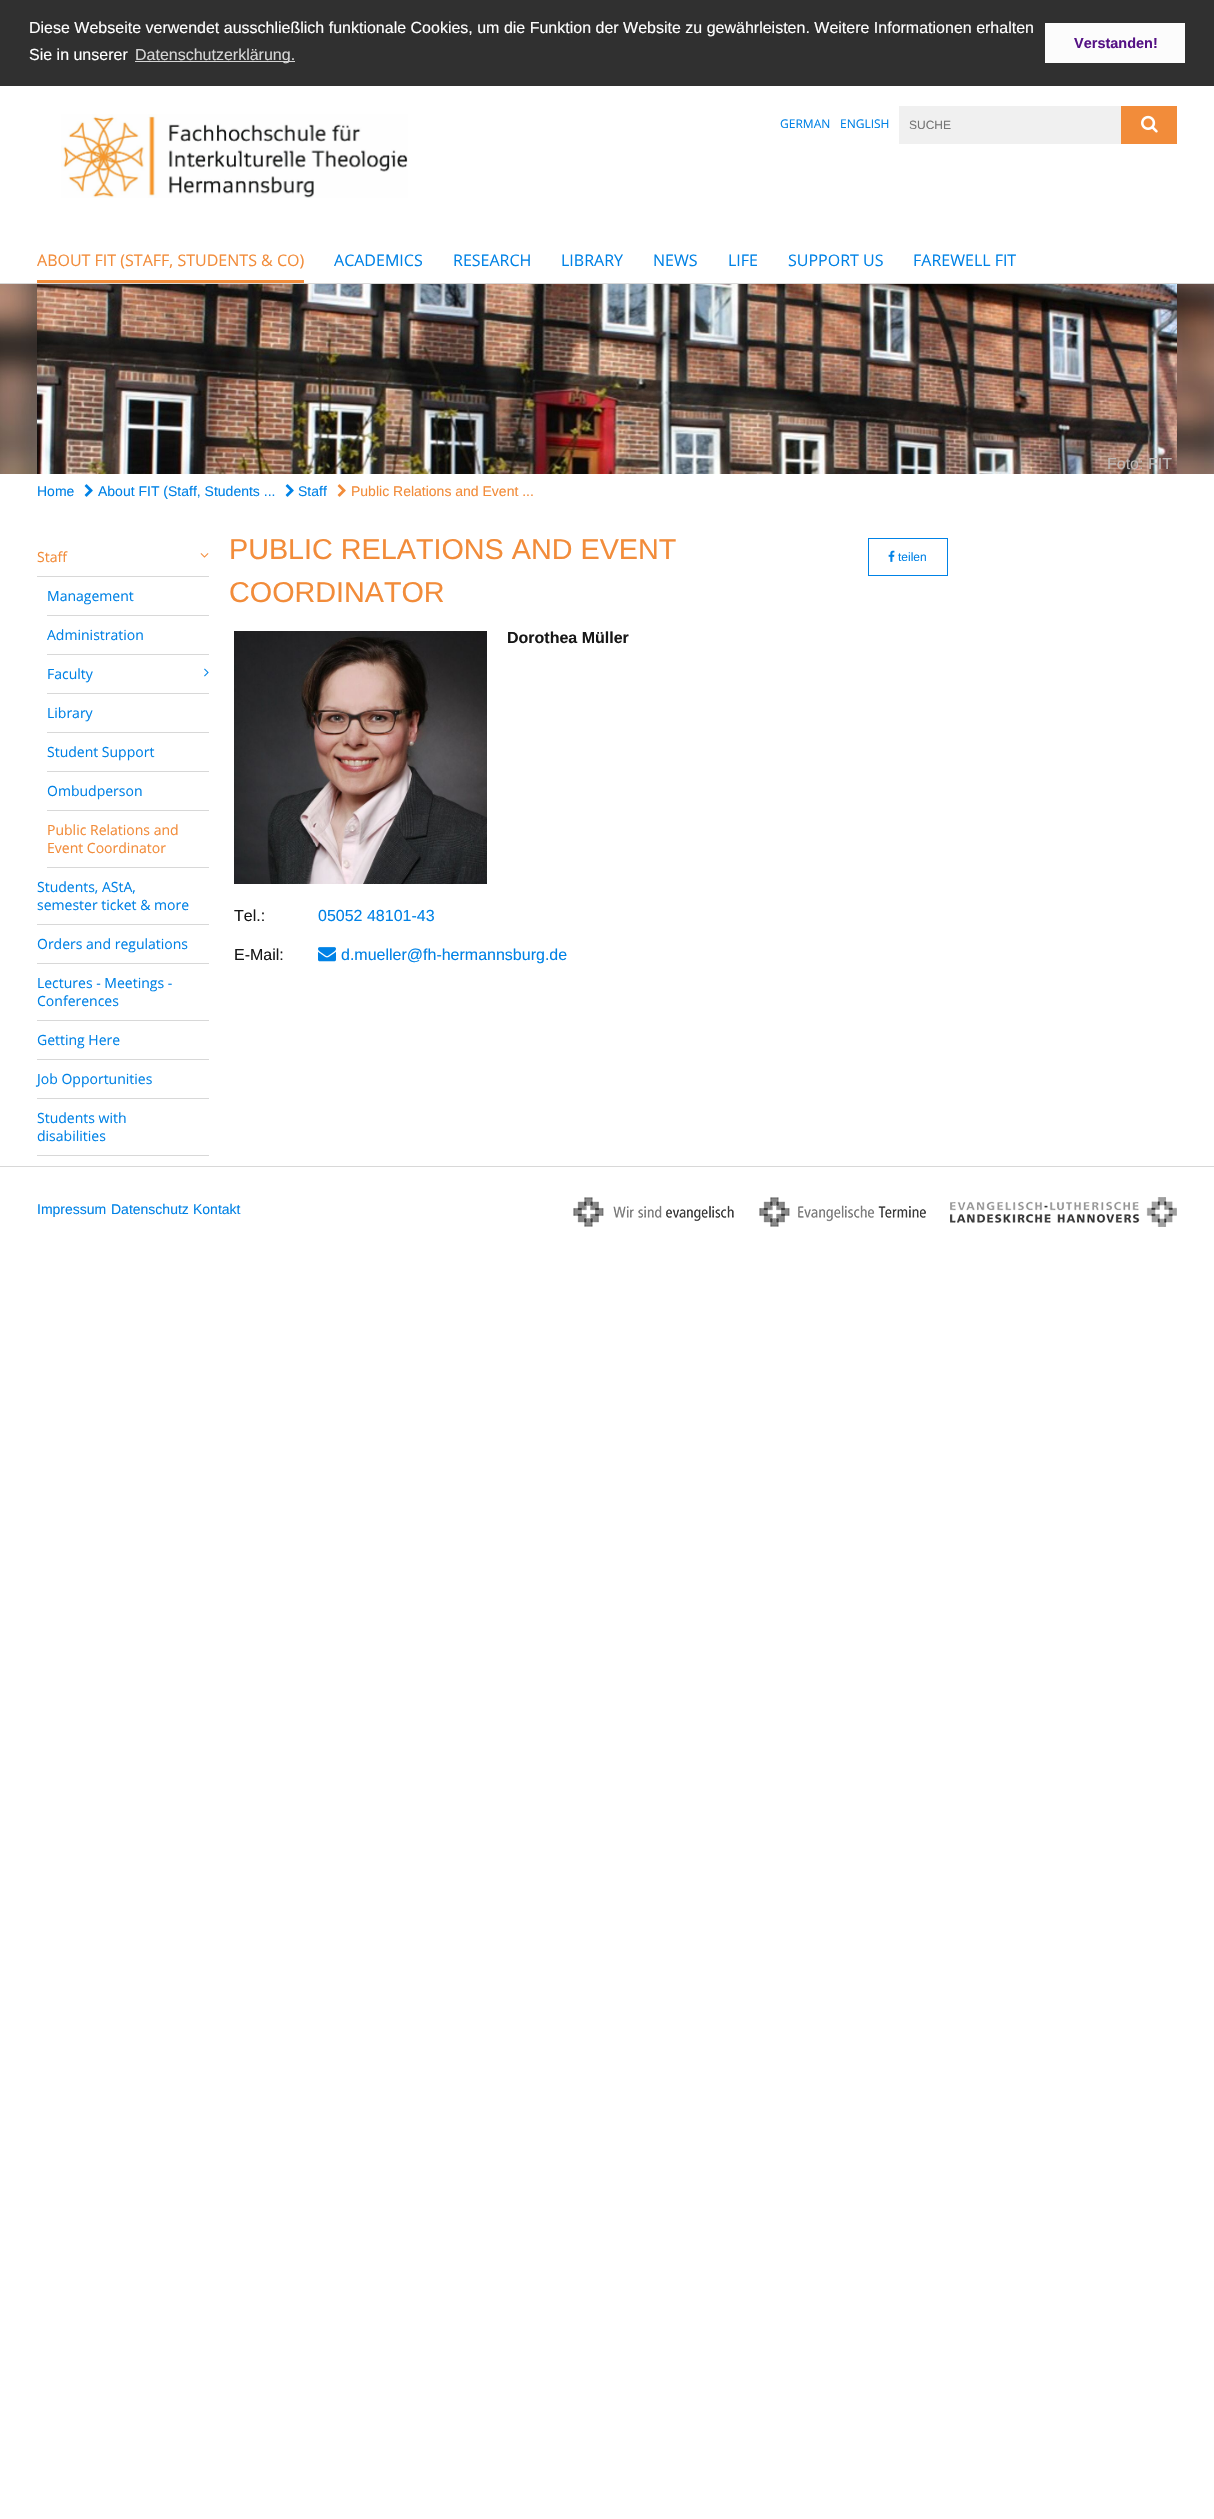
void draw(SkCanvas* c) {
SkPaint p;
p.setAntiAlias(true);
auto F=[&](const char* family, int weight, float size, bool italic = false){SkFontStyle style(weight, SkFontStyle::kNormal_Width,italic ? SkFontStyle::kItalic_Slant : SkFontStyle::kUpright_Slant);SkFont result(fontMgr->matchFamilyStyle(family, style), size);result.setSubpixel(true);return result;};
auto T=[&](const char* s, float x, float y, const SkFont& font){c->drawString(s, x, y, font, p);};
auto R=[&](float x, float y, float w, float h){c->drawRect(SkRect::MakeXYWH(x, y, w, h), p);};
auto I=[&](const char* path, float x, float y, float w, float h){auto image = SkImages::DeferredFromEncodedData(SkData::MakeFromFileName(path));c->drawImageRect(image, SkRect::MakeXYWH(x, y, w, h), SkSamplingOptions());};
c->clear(0xffffffff);
p.setColor(0xff303030);
R(0,0,1214,86);
auto f1 = F("Liberation Sans",400,16);
p.setColor(0xffffffff);
T("Diese Webseite verwendet ausschließlich funktionale Cookies, um die Funktion der Website zu gewährleisten. Weitere Informationen erhalten",29,33,f1);
T("Sie in unserer",29,60,f1);
p.setColor(0xffd6d6d6);
R(135,61,160,1);
T("Datenschutzerklärung.",135,60,f1);
p.setColor(0xfffcfcfc);
R(1045,23,140,40);
auto f2 = F("Liberation Sans",700,14.5);
p.setColor(0xff551285);
T("Verstanden!",1074,48,f2);
p.setColor(0xffd8d8d8);
R(0,283,1214,1);
I("1.png",61,114,347,84);
auto f3 = F("Open Sans",400,12);
p.setColor(0xff0082e6);
T("GERMAN",780,128,f3);
T("ENGLISH",840,128,f3);
p.setColor(0xfff0f0f0);
R(899,106,222,38);
auto f4 = F("Liberation Sans",400,12);
p.setColor(0xff757575);
T("SUCHE",909,129,f4);
p.setColor(0xfff28c3a);
R(1121,106,56,38);
I("2.png",1141,115,17,18);
R(37,280,267,3);
auto f5 = F("Open Sans",400,16);
T("ABOUT FIT (STAFF, STUDENTS & CO)",37,266,f5);
p.setColor(0xff0082e6);
T("ACADEMICS",334,266,f5);
T("RESEARCH",453,266,f5);
T("LIBRARY",561,266,f5);
T("NEWS",653,266,f5);
T("LIFE",728,266,f5);
T("SUPPORT US",788,266,f5);
T("FAREWELL FIT",913,266,f5);
I("3.png",0,284,1214,190);
I("4.png",37,284,1140,190);
p.setColor(0xffbeb9b7);
T("Foto: FIT",1107,469,f1);
auto f6 = F("Liberation Sans",400,14);
p.setColor(0xff0082e6);
T("Home",37,496,f6);
I("5.png",84,484,9,13);
T("About FIT (Staff, Students ...",98,496,f6);
I("5.png",285,484,9,13);
T("Staff",298,496,f6);
I("6.png",337,484,9,13);
p.setColor(0xfff28c3a);
T("Public Relations and Event ...",351,496,f6);
p.setColor(0xffd8d8d8);
R(37,576,172,1);
auto f7 = F("Open Sans",400,14);
p.setColor(0xfff28c3a);
T("Staff",37,562,f7);
I("7.png",200,553,9,5);
p.setColor(0xffd8d8d8);
R(47,615,162,1);
p.setColor(0xff0082e6);
T("Management",47,601,f7);
p.setColor(0xffd8d8d8);
R(47,654,162,1);
p.setColor(0xff0082e6);
T("Administration",47,640,f7);
p.setColor(0xffd8d8d8);
R(47,693,162,1);
p.setColor(0xff0082e6);
T("Faculty",47,679,f7);
I("8.png",204,668,5,9);
p.setColor(0xffd8d8d8);
R(47,732,162,1);
p.setColor(0xff0082e6);
T("Library",47,718,f7);
p.setColor(0xffd8d8d8);
R(47,771,162,1);
p.setColor(0xff0082e6);
T("Student Support",47,757,f7);
p.setColor(0xffd8d8d8);
R(47,810,162,1);
p.setColor(0xff0082e6);
T("Ombudperson",47,796,f7);
p.setColor(0xffd8d8d8);
R(47,867,162,1);
p.setColor(0xfff28c3a);
T("Public Relations and",47,835,f7);
T("Event Coordinator",47,853,f7);
p.setColor(0xffd8d8d8);
R(37,924,172,1);
p.setColor(0xff0082e6);
T("Students, AStA,",37,892,f7);
T("semester ticket & more",37,910,f7);
p.setColor(0xffd8d8d8);
R(37,963,172,1);
p.setColor(0xff0082e6);
T("Orders and regulations",37,949,f7);
p.setColor(0xffd8d8d8);
R(37,1020,172,1);
p.setColor(0xff0082e6);
T("Lectures - Meetings -",37,988,f7);
T("Conferences",37,1006,f7);
p.setColor(0xffd8d8d8);
R(37,1059,172,1);
p.setColor(0xff0082e6);
T("Getting Here",37,1045,f7);
p.setColor(0xffd8d8d8);
R(37,1098,172,1);
p.setColor(0xff0082e6);
T("Job Opportunities",37,1084,f7);
p.setColor(0xffd8d8d8);
R(37,1155,172,1);
p.setColor(0xff0082e6);
T("Students with",37,1123,f7);
T("disabilities",37,1141,f7);
auto f8 = F("Liberation Sans",400,28.75);
p.setColor(0xfff28c3a);
T("PUBLIC RELATIONS AND EVENT",229,559,f8);
T("COORDINATOR",229,602,f8);
p.setStroke(true);
p.setStrokeWidth(1);
p.setColor(0xff0082e6);
c->drawRect(SkRect::MakeXYWH(868.5,538.5,79,37),p);
I("9.png",888,550,7,12);
p.setStroke(false);
T("teilen",898,561,f4);
I("10.png",234,631,253,253);
auto f9 = F("Liberation Sans",700,16);
p.setColor(0xff171717);
T("Dorothea Müller",507,643,f9);
T("Tel.:",234,921,f1);
p.setColor(0xff0082e6);
T("05052 48101-43",318,921,f1);
p.setColor(0xff171717);
T("E-Mail:",234,960,f1);
I("11.png",318,947,18,15);
p.setColor(0xff0082e6);
T("d.mueller@fh-hermannsburg.de",341,960,f1);
p.setColor(0xffd8d8d8);
R(0,1166,1214,1);
p.setColor(0xff0082e6);
T("Impressum",37,1214,f6);
T("Datenschutz",111,1214,f6);
T("Kontakt",193,1214,f6);
I("12.png",573,1197,161,30);
I("13.png",759,1197,167,30);
I("14.png",950,1197,227,30);
}
